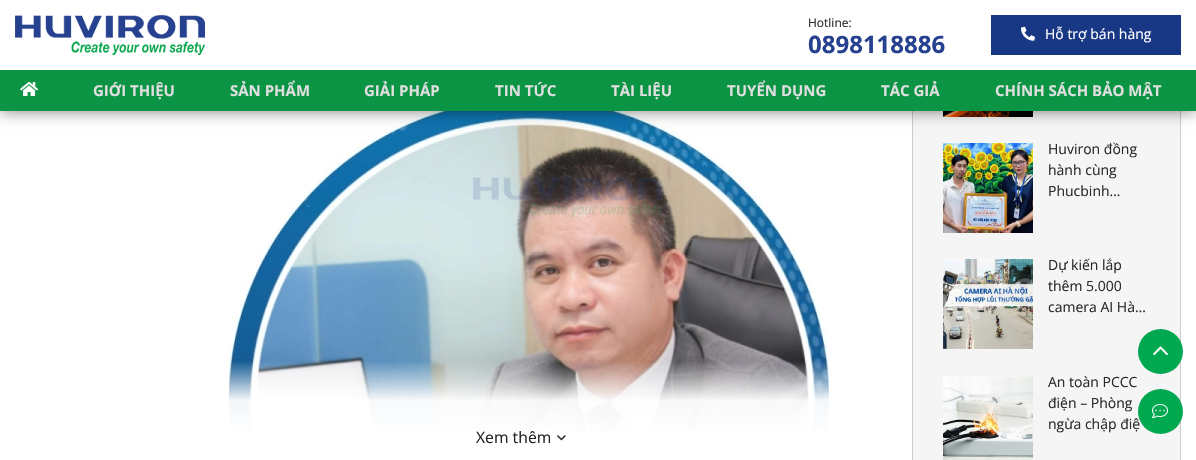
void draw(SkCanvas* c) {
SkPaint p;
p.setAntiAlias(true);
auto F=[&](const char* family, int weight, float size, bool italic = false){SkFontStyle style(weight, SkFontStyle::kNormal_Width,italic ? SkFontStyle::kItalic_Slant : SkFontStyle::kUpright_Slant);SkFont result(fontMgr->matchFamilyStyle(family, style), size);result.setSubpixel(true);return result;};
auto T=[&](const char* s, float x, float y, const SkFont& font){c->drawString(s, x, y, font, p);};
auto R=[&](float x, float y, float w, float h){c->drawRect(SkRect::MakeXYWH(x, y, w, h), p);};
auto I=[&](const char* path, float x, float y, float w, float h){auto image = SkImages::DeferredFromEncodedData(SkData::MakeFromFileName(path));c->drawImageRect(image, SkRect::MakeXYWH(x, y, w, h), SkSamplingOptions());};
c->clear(0xffffffff);
p.setColor(0xfff5f5f5);
R(913,111,267,349);
p.setStroke(true);
p.setStrokeWidth(1);
p.setColor(0xffcccccc);
c->drawRect(SkRect::MakeXYWH(912.5,-.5,268,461),p);
I("4.png",943,111,90,6);
I("8.png",229,111,600,324);
p.setStroke(false);
p.setColor(0x80000000);
p.setMaskFilter(SkMaskFilter::MakeBlur(kNormal_SkBlurStyle, 7.5));
c->drawRect(SkRect::MakeXYWH(0,0,1196,111),p);
p.setMaskFilter(nullptr);
p.setColor(0xffffffff);
R(0,0,1196,70);
I("1.png",15,15,190,40);
auto f1 = F("Open Sans",400,12);
p.setColor(0xff2a2a2a);
T("Hotline:",808,27,f1);
auto f2 = F("Open Sans",700,24);
p.setColor(0xff26418f);
T("0898118886",808,53,f2);
p.setColor(0xff183885);
R(991,15,190,40);
I("2.png",1021,26,14,15);
auto f3 = F("Open Sans",400,14);
p.setColor(0xffffffff);
T("Hỗ trợ bán hàng",1045,39,f3);
p.setColor(0xff0b9444);
R(0,70,1196,41);
I("3.png",20,82,18,14);
auto f4 = F("Open Sans",700,15);
p.setColor(0xffdfdfdf);
T("GIỚI THIỆU",93,96,f4);
T("SẢN PHẨM",230,96,f4);
T("GIẢI PHÁP",364,96,f4);
T("TIN TỨC",495,96,f4);
T("TÀI LIỆU",611,96,f4);
T("TUYỂN DỤNG",727,96,f4);
T("TÁC GIẢ",881,96,f4);
T("CHÍNH SÁCH BẢO MẬT",995,96,f4);
I("5.png",943,143,90,90);
p.setColor(0xff2a2a2a);
T("Huviron đồng",1048,154,f3);
T("hành cùng",1048,175,f3);
T("Phucbinh…",1048,196,f3);
I("6.png",943,259,90,90);
T("Dự kiến lắp",1048,270,f3);
T("thêm 5.000",1048,291,f3);
T("camera AI Hà…",1048,312,f3);
I("7.png",943,376,90,84);
T("An toàn PCCC",1048,387,f3);
T("điện – Phòng",1048,408,f3);
T("ngừa chập điệ",1048,429,f3);
{
const SkColor colors[] = {0xffffffff,0xf2ffffff,0x00ffffff};
const float stops[] = {.3,.65,1};
const SkPoint ends[] = {{449,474}, {449,361}};
p.setShader(SkGradientShader::MakeLinear(ends, colors, stops, 3, SkTileMode::kClamp));
p.setAlpha(255);
}
R(229,362,600,73);
auto f5 = F("Open Sans",400,15.75);
p.setShader(nullptr);
p.setColor(0xff222222);
T("Xem thêm",476,443,f5);
I("9.png",557,435,9,6);
p.setColor(0xff00a850);
c->drawCircle(1160.5,351.5,22.5,p);
I("10.png",1153,346,15,10);
c->drawCircle(1160.5,411.5,22.5,p);
I("11.png",1152,404,16,14);
I("12.png",473,177,190,40);
}
